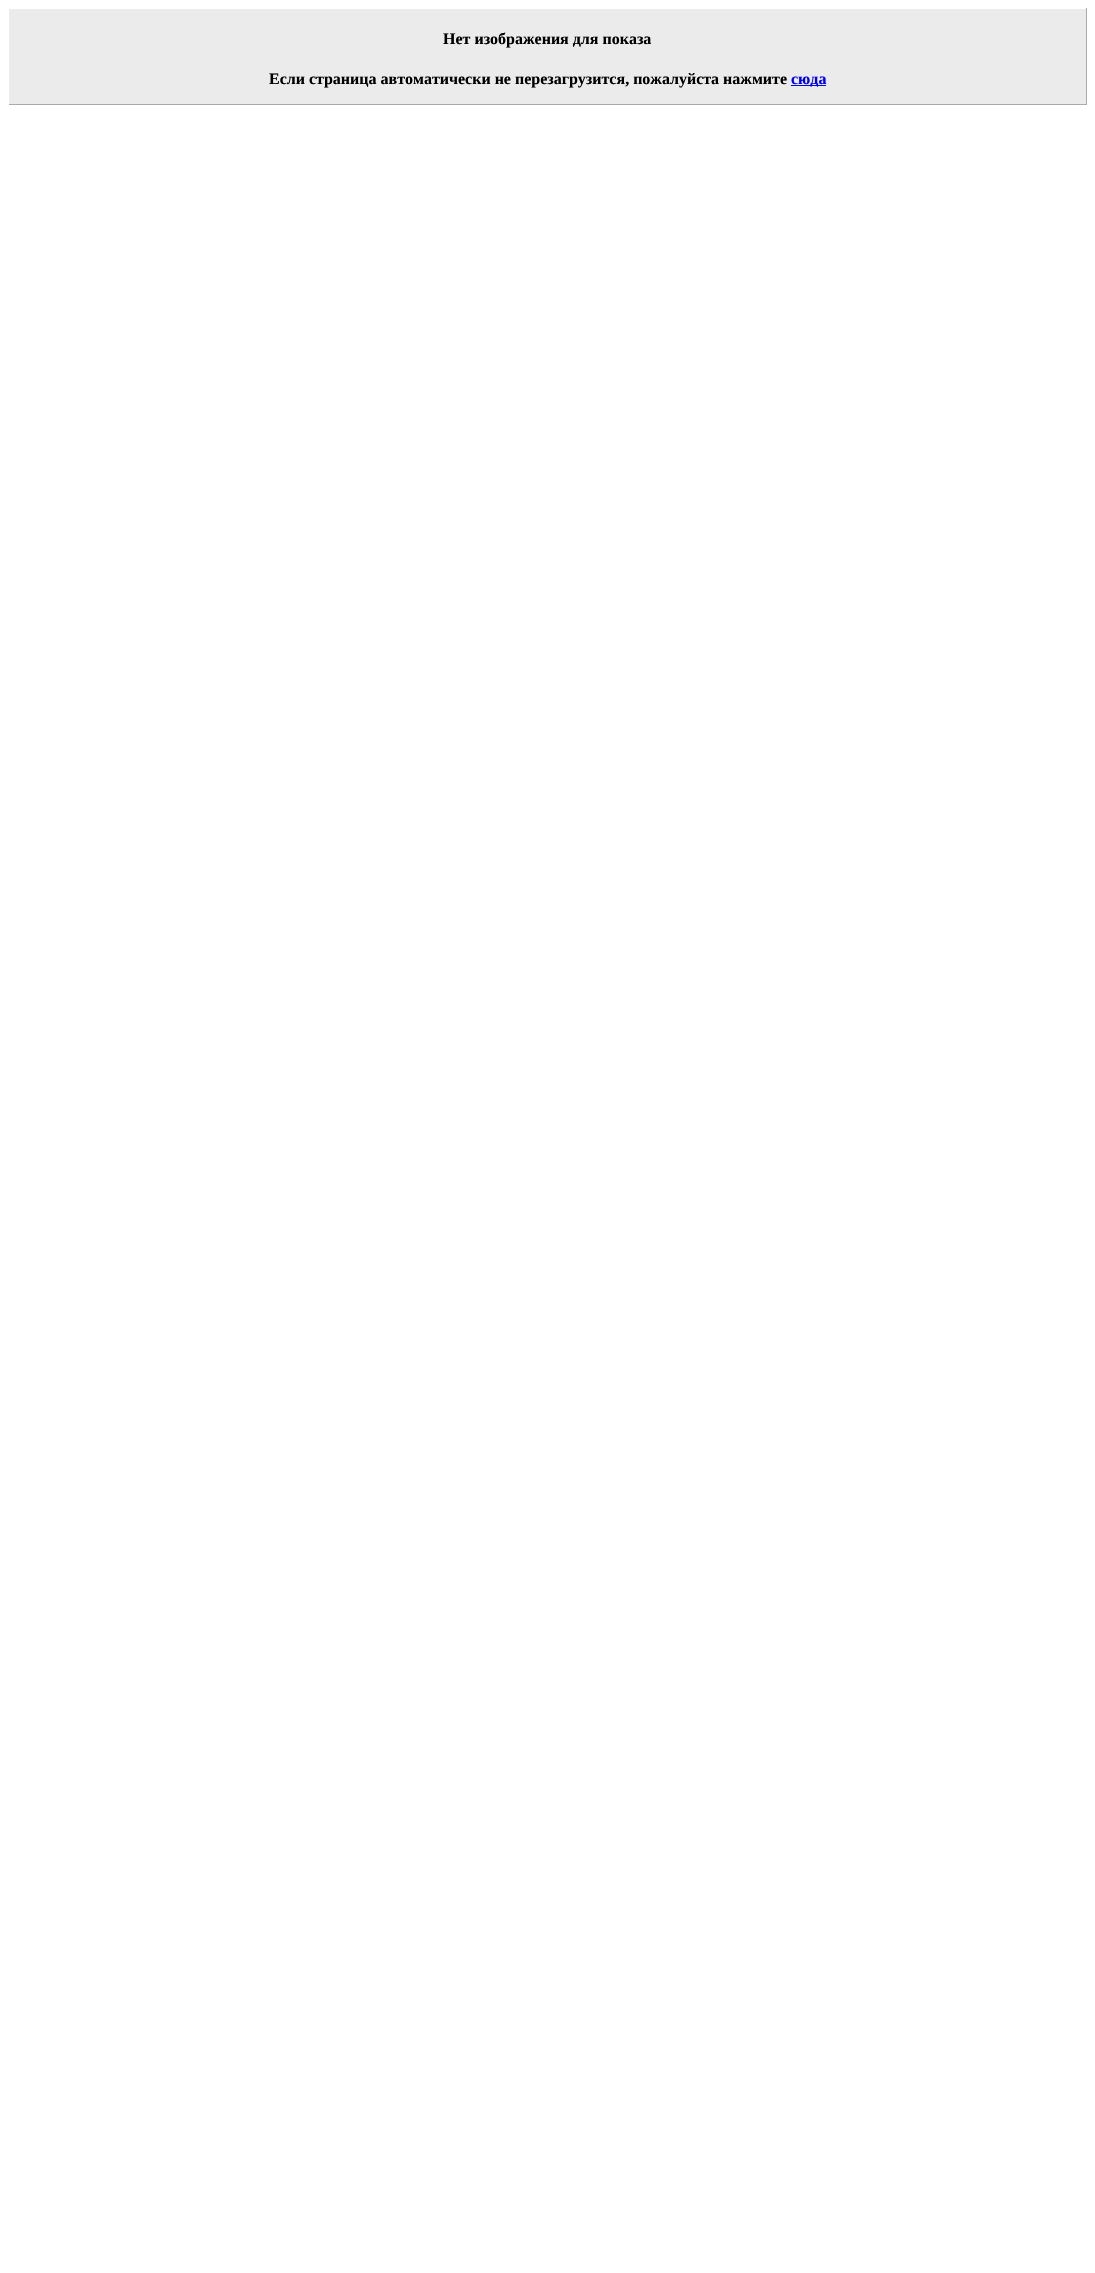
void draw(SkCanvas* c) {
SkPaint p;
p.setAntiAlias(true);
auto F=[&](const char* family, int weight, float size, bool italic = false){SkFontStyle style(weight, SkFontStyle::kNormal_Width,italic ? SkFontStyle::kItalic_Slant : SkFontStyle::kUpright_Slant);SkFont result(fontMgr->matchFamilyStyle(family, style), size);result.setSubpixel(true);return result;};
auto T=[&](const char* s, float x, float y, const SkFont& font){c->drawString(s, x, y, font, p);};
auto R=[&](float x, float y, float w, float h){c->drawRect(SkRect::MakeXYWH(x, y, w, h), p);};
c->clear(0xffffffff);
p.setColor(0xffebebeb);
R(9,9,1077,95);
p.setColor(0xffaaaaaa);
R(1086,8,1,97);
R(8,104,1079,1);
p.setColor(0xffffffff);
R(8,104,1,1);
auto f1 = F("Liberation Serif",700,16);
p.setColor(0xff000000);
T("Нет изображения для показа",443,44,f1);
T("Если страница автоматически не перезагрузится, пожалуйста нажмите",269,84,f1);
p.setColor(0xff0000ee);
R(791,85,35,1);
T("сюда",791,84,f1);
}
